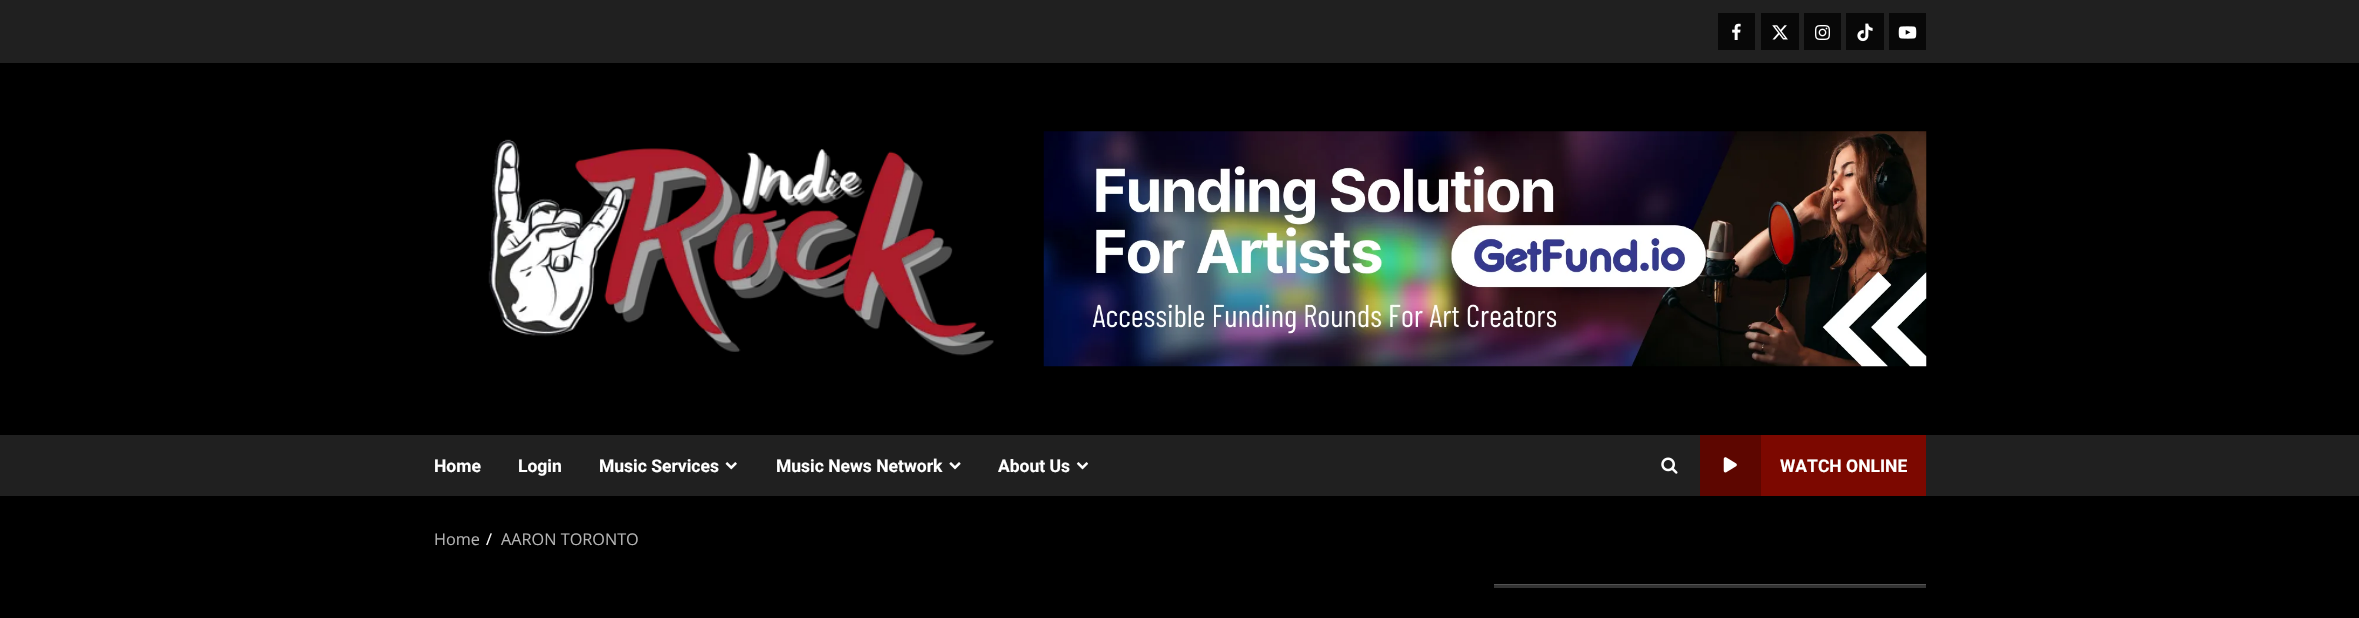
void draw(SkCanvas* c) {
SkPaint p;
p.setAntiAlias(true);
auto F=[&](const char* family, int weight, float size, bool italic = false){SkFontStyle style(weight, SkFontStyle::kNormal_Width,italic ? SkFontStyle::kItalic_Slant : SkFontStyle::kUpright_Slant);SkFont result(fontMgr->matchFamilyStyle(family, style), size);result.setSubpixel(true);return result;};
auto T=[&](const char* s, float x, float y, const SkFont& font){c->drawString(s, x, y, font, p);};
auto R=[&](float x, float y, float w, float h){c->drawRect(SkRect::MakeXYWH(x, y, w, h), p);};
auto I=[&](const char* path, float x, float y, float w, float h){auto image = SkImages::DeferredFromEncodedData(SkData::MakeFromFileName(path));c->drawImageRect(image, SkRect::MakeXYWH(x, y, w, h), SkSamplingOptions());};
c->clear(0xff000000);
p.setColor(0xff202020);
R(0,0,2359,63);
p.setColor(0xff080808);
R(1718,13,37,37);
I("1.png",1732,23,9,17);
R(1761,13,38,37);
I("2.png",1772,25,16,15);
R(1804,13,37,37);
I("3.png",1815,25,15,15);
R(1846,13,38,37);
I("4.png",1857,23,16,19);
R(1889,13,37,37);
I("5.png",1898,26,19,13);
I("6.png",488,139,506,217);
I("7.png",1043,131,884,236);
p.setColor(0xff202020);
R(0,435,2359,61);
auto f1 = F("Roboto",700,17.5);
p.setColor(0xffffffff);
T("Home",434,472,f1);
T("Login",518,472,f1);
T("Music Services",599,472,f1);
I("8.png",725,462,12,8);
T("Music News Network",776,472,f1);
I("9.png",949,462,12,8);
T("About Us",998,472,f1);
I("10.png",1076,462,13,8);
I("11.png",1661,457,17,17);
p.setColor(0xff7c0800);
R(1761,435,165,61);
p.setColor(0xff5d0600);
R(1700,435,61,61);
I("12.png",1723,457,14,16);
p.setColor(0xffffffff);
T("WATCH ONLINE",1780,472,f1);
auto f2 = F("Open Sans",400,16.25);
p.setColor(0xffb3b3b3);
T("Home",434,545,f2);
p.setColor(0xffffffff);
T("/",486,545,f2);
p.setColor(0xffb3b3b3);
T("AARON TORONTO",501,545,f2);
p.setColor(0xff525252);
R(1494,584,432,1);
p.setColor(0xff333333);
R(1494,585,432,3);
}
